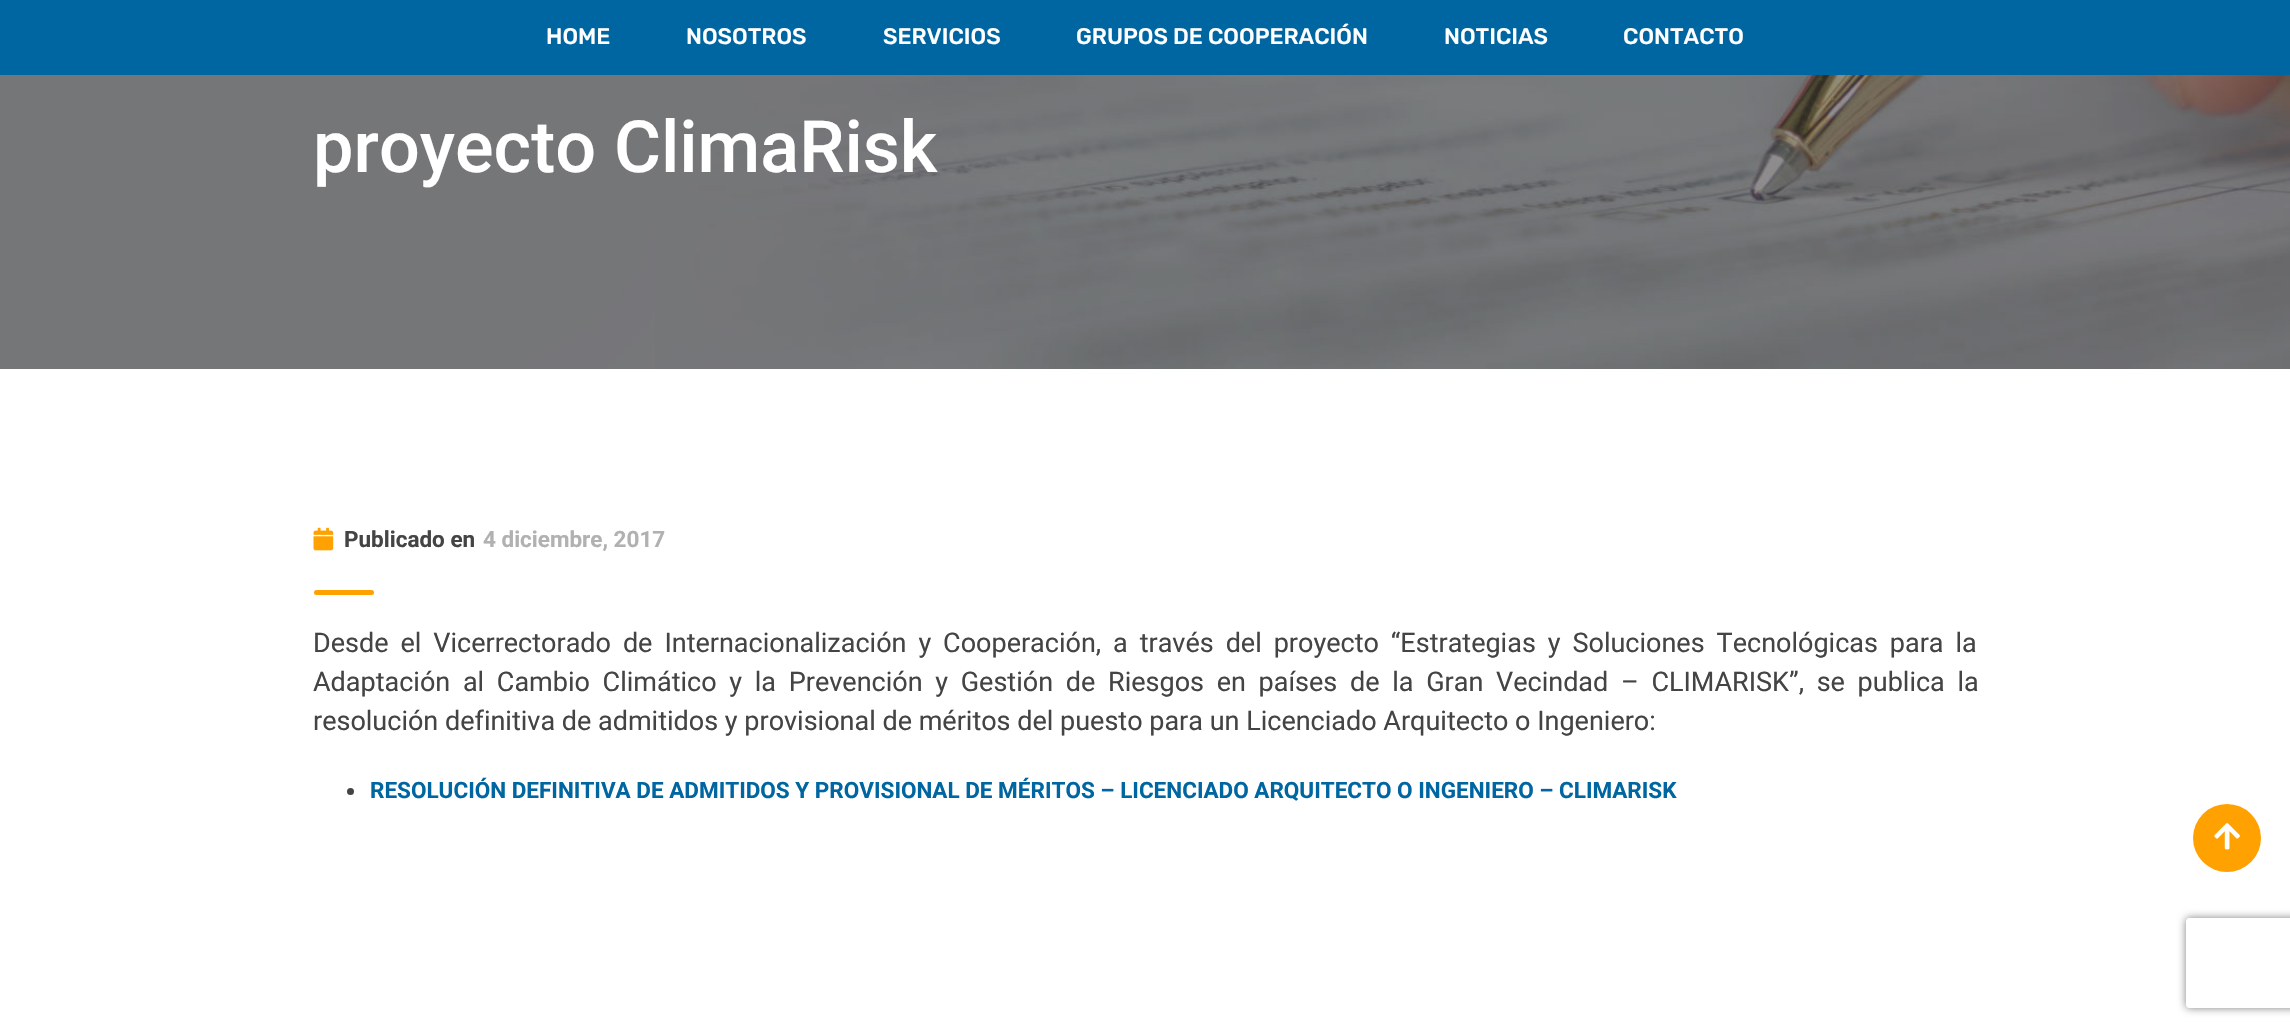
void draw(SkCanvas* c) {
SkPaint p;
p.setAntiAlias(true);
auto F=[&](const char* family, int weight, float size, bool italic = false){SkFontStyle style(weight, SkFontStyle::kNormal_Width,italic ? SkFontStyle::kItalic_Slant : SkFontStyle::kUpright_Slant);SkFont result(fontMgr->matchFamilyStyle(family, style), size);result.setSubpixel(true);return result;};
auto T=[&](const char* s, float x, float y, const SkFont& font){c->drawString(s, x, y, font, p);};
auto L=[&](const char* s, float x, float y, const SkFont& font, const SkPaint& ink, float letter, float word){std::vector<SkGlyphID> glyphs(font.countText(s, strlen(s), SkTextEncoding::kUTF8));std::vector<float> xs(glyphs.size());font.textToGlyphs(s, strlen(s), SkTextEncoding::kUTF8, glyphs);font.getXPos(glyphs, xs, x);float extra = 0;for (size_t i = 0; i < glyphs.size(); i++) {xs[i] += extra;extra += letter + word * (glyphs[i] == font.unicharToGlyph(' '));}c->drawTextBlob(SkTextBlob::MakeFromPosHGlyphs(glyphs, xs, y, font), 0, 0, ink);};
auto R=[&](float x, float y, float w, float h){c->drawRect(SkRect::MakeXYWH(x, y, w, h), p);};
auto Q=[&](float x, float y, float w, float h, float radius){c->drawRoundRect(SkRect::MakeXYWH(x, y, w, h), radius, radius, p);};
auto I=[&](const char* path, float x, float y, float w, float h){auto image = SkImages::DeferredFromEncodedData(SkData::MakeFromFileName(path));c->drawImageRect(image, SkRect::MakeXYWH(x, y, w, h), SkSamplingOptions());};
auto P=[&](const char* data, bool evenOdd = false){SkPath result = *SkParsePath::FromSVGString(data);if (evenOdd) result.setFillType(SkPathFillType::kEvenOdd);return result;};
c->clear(0xffffffff);
p.setColor(0xff0066a1);
R(0,0,2290,75);
auto f1 = F("Rubik",500,22.5);
p.setColor(0xffffffff);
T("HOME",546,44,f1);
T("NOSOTROS",686,44,f1);
T("SERVICIOS",883,44,f1);
T("GRUPOS DE COOPERACIÓN",1076,44,f1);
T("NOTICIAS",1444,44,f1);
T("CONTACTO",1623,44,f1);
I("1.png",0,75,2290,294);
auto f2 = F("Roboto",500,72);
T("proyecto ClimaRisk",313,172,f2);
I("2.png",313,527,21,24);
auto f3 = F("Roboto",700,22.5);
p.setColor(0xff444444);
T("Publicado en",344,547,f3);
p.setColor(0xffb1b1b1);
T("4 diciembre, 2017",483,547,f3);
p.setColor(0xffffa100);
Q(314,590,60,5,2.5);
auto f4 = F("Roboto",400,27);
p.setColor(0xff444444);
L("Desde el Vicerrectorado de Internacionalización y Cooperación, a través del proyecto “Estrategias y Soluciones Tecnológicas para la",313,652,f4,p,0,5.25);
L("Adaptación al Cambio Climático y la Prevención y Gestión de Riesgos en países de la Gran Vecindad – CLIMARISK”, se publica la",313,691,f4,p,0,6);
T("resolución definitiva de admitidos y provisional de méritos del puesto para un Licenciado Arquitecto o Ingeniero:",313,730,f4);
c->drawCircle(350.5,791.5,3.5,p);
p.setColor(0xff0066a1);
T("RESOLUCIÓN DEFINITIVA DE ADMITIDOS Y PROVISIONAL DE MÉRITOS – LICENCIADO ARQUITECTO O INGENIERO – CLIMARISK",370,798,f3);
p.setColor(0xffffa100);
c->drawCircle(2227,838,34,p);
I("3.png",2214,823,26,27);
c->save();
c->clipPath(P("M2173 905h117v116h-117zm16 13h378c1.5 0 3 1.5 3 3v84c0 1.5-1.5 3-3 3h-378c-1.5 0-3-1.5-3-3v-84c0-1.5 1.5-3 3-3z",true),true);
p.setColor(0xff808080);
p.setMaskFilter(SkMaskFilter::MakeBlur(kNormal_SkBlurStyle, 4));
c->drawRoundRect(SkRect::MakeXYWH(2186,918,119,90),3,3,p);
p.setMaskFilter(nullptr);
c->restore();
}
